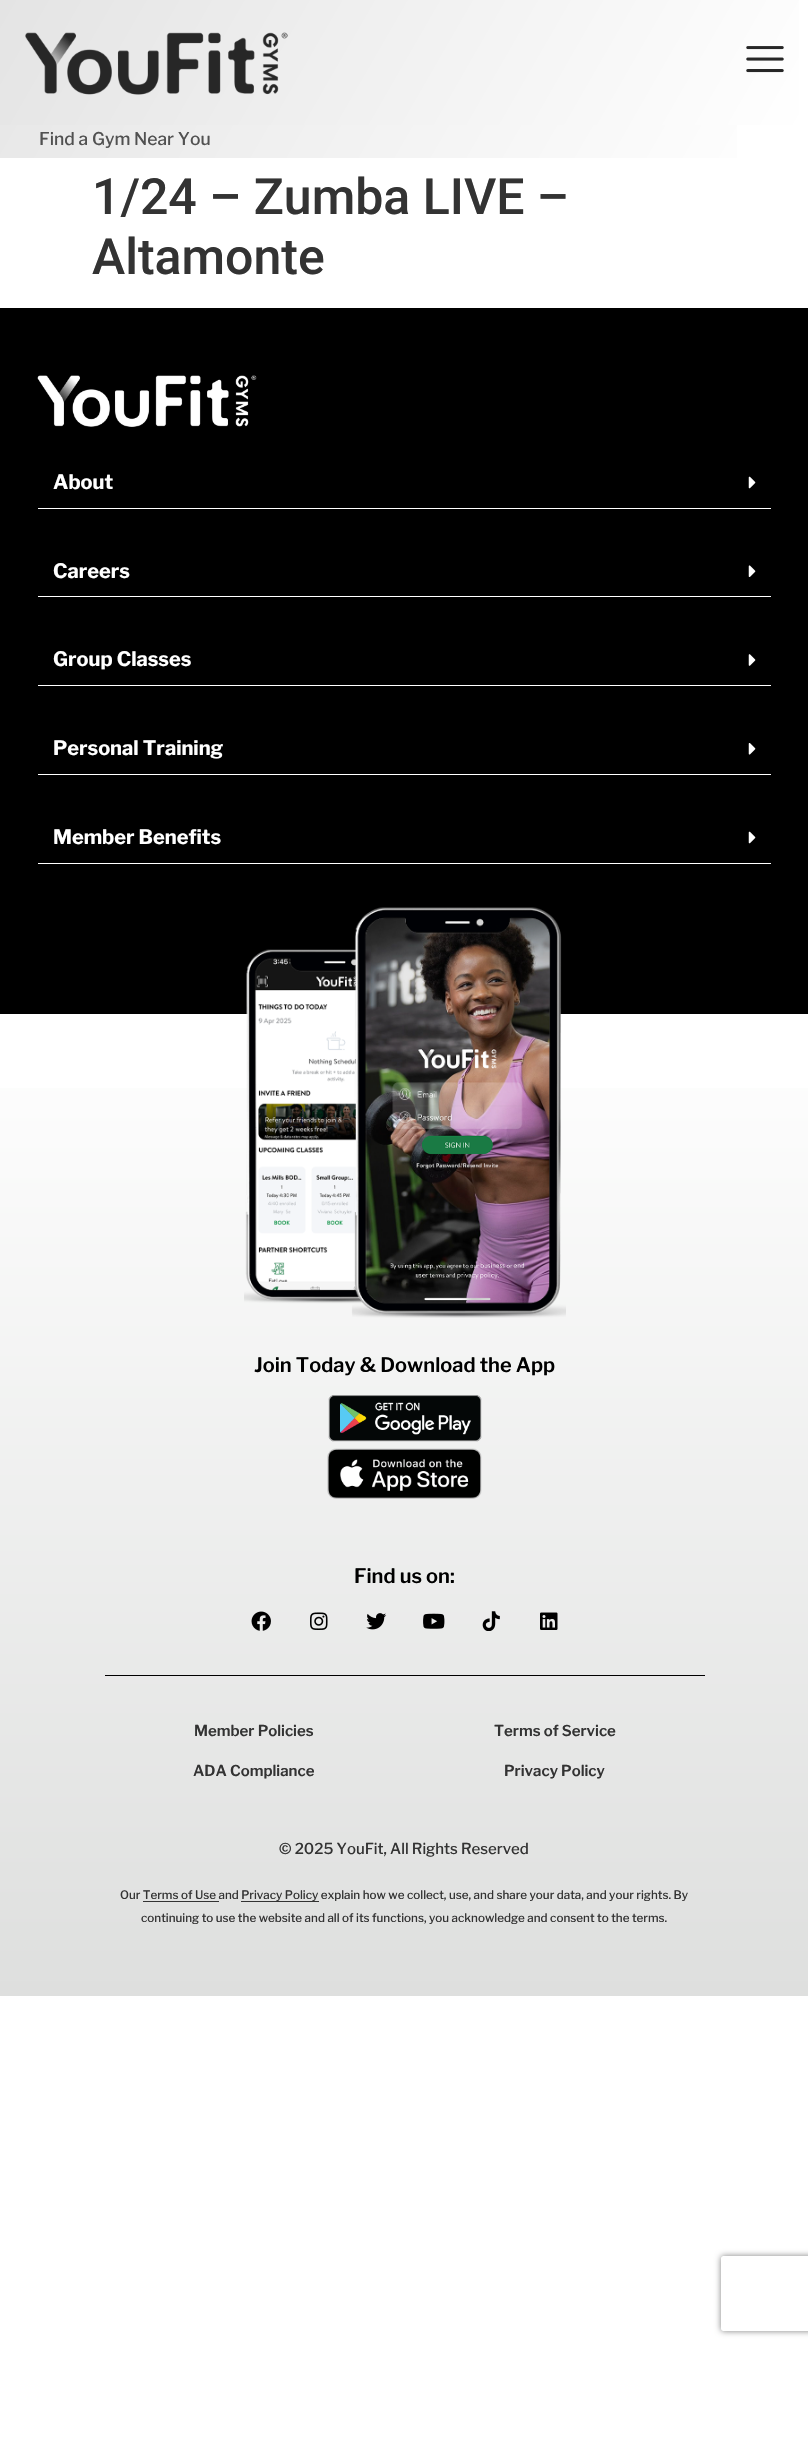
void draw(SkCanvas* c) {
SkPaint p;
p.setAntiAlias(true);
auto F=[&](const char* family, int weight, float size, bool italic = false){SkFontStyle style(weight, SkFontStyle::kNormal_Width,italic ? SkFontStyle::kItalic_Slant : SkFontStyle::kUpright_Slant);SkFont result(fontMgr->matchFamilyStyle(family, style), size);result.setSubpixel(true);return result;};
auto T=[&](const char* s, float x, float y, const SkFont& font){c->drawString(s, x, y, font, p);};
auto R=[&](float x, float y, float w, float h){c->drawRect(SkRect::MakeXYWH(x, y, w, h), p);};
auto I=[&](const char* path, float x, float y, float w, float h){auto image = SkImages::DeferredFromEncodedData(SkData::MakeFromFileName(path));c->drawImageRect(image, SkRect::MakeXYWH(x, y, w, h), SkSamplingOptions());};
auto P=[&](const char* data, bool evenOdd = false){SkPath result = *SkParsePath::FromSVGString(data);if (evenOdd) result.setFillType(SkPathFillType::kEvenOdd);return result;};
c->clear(0xffffffff);
{
const SkColor colors[] = {0xffe4e4e4,0xffffffff};
const float stops[] = {0,1};
const SkPoint ends[] = {{74,-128}, {735,253}};
p.setShader(SkGradientShader::MakeLinear(ends, colors, stops, 2, SkTileMode::kClamp));
p.setAlpha(255);
}
R(0,0,799,125);
I("1.png",25,32,263,63);
I("2.png",746,46,38,27);
{
const SkColor colors[] = {0xffe8e8e8,0xffffffff};
const float stops[] = {0,1};
const SkPoint ends[] = {{94,-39}, {715,320}};
p.setShader(SkGradientShader::MakeLinear(ends, colors, stops, 2, SkTileMode::kClamp));
p.setAlpha(255);
}
R(0,125,737,33);
auto f1 = F("Libre Franklin",500,17.5);
p.setShader(nullptr);
p.setColor(0xff515151);
T("Find a Gym Near You",39,145,f1);
auto f2 = F("Roboto",500,50);
p.setColor(0xff333333);
T("1/24 – Zumba LIVE –",92,214,f2);
T("Altamonte",92,274,f2);
p.setColor(0xff000000);
R(0,308,808,706);
I("3.png",37,375,220,52);
p.setColor(0xffffffff);
R(38,508,733,1);
auto f3 = F("Libre Franklin",700,20);
T("About",53,489,f3);
I("4.png",748,476,8,13);
R(38,596,733,1);
T("Careers",53,578,f3);
I("5.png",748,565,8,12);
R(38,685,733,1);
T("Group Classes",53,666,f3);
I("6.png",748,654,8,12);
R(38,774,733,1);
T("Personal Training",53,755,f3);
I("7.png",748,743,8,12);
R(38,863,733,1);
T("Member Benefits",53,844,f3);
I("4.png",748,831,8,13);
{
const SkColor colors[] = {0xffdedfde,0xffffffff};
const float stops[] = {0,1};
const SkPoint ends[] = {{404,1996}, {404,1014}};
p.setShader(SkGradientShader::MakeLinear(ends, colors, stops, 2, SkTileMode::kClamp));
p.setAlpha(255);
}
R(0,1088,808,908);
I("8.png",244,907,322,411);
auto f4 = F("Libre Franklin",600,20);
p.setShader(nullptr);
p.setColor(0xff000000);
T("Join Today & Download the App",254,1372,f4);
I("9.png",328,1395,154,47);
I("10.png",327,1448,155,51);
T("Find us on:",354,1583,f4);
I("11.png",251,1611,20,20);
I("12.png",310,1612,18,18);
I("13.png",366,1613,21,17);
I("14.png",423,1613,22,16);
I("15.png",482,1611,18,20);
I("16.png",540,1612,18,18);
R(105,1675,600,1);
auto f5 = F("Libre Franklin",600,15);
p.setColor(0xff333333);
T("Member Policies",194,1736,f5);
T("Terms of Service",494,1736,f5);
T("ADA Compliance",193,1776,f5);
T("Privacy Policy",504,1776,f5);
auto f6 = F("Libre Franklin",500,15);
T("© 2025 YouFit, All Rights Reserved",279,1854,f6);
auto f7 = F("Libre Franklin",500,11.65);
T("Our Terms of Use and Privacy Policy explain how we collect, use, and share your data, and your rights. By",120,1899,f7);
R(143,1901,76,1);
R(241,1901,78,1);
T("continuing to use the website and all of its functions, you acknowledge and consent to the terms.",141,1922,f7);
c->save();
c->clipPath(P("M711 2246h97v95h-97zm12.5 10h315c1.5 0 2.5 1 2.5 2.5v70c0 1.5-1 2.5-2.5 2.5h-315c-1.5 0-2.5-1-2.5-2.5v-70c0-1.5 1-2.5 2.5-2.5z",true),true);
p.setColor(0xff808080);
p.setMaskFilter(SkMaskFilter::MakeBlur(kNormal_SkBlurStyle, 3));
c->drawRoundRect(SkRect::MakeXYWH(721,2256,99,75),2.5,2.5,p);
p.setMaskFilter(nullptr);
c->restore();
}
